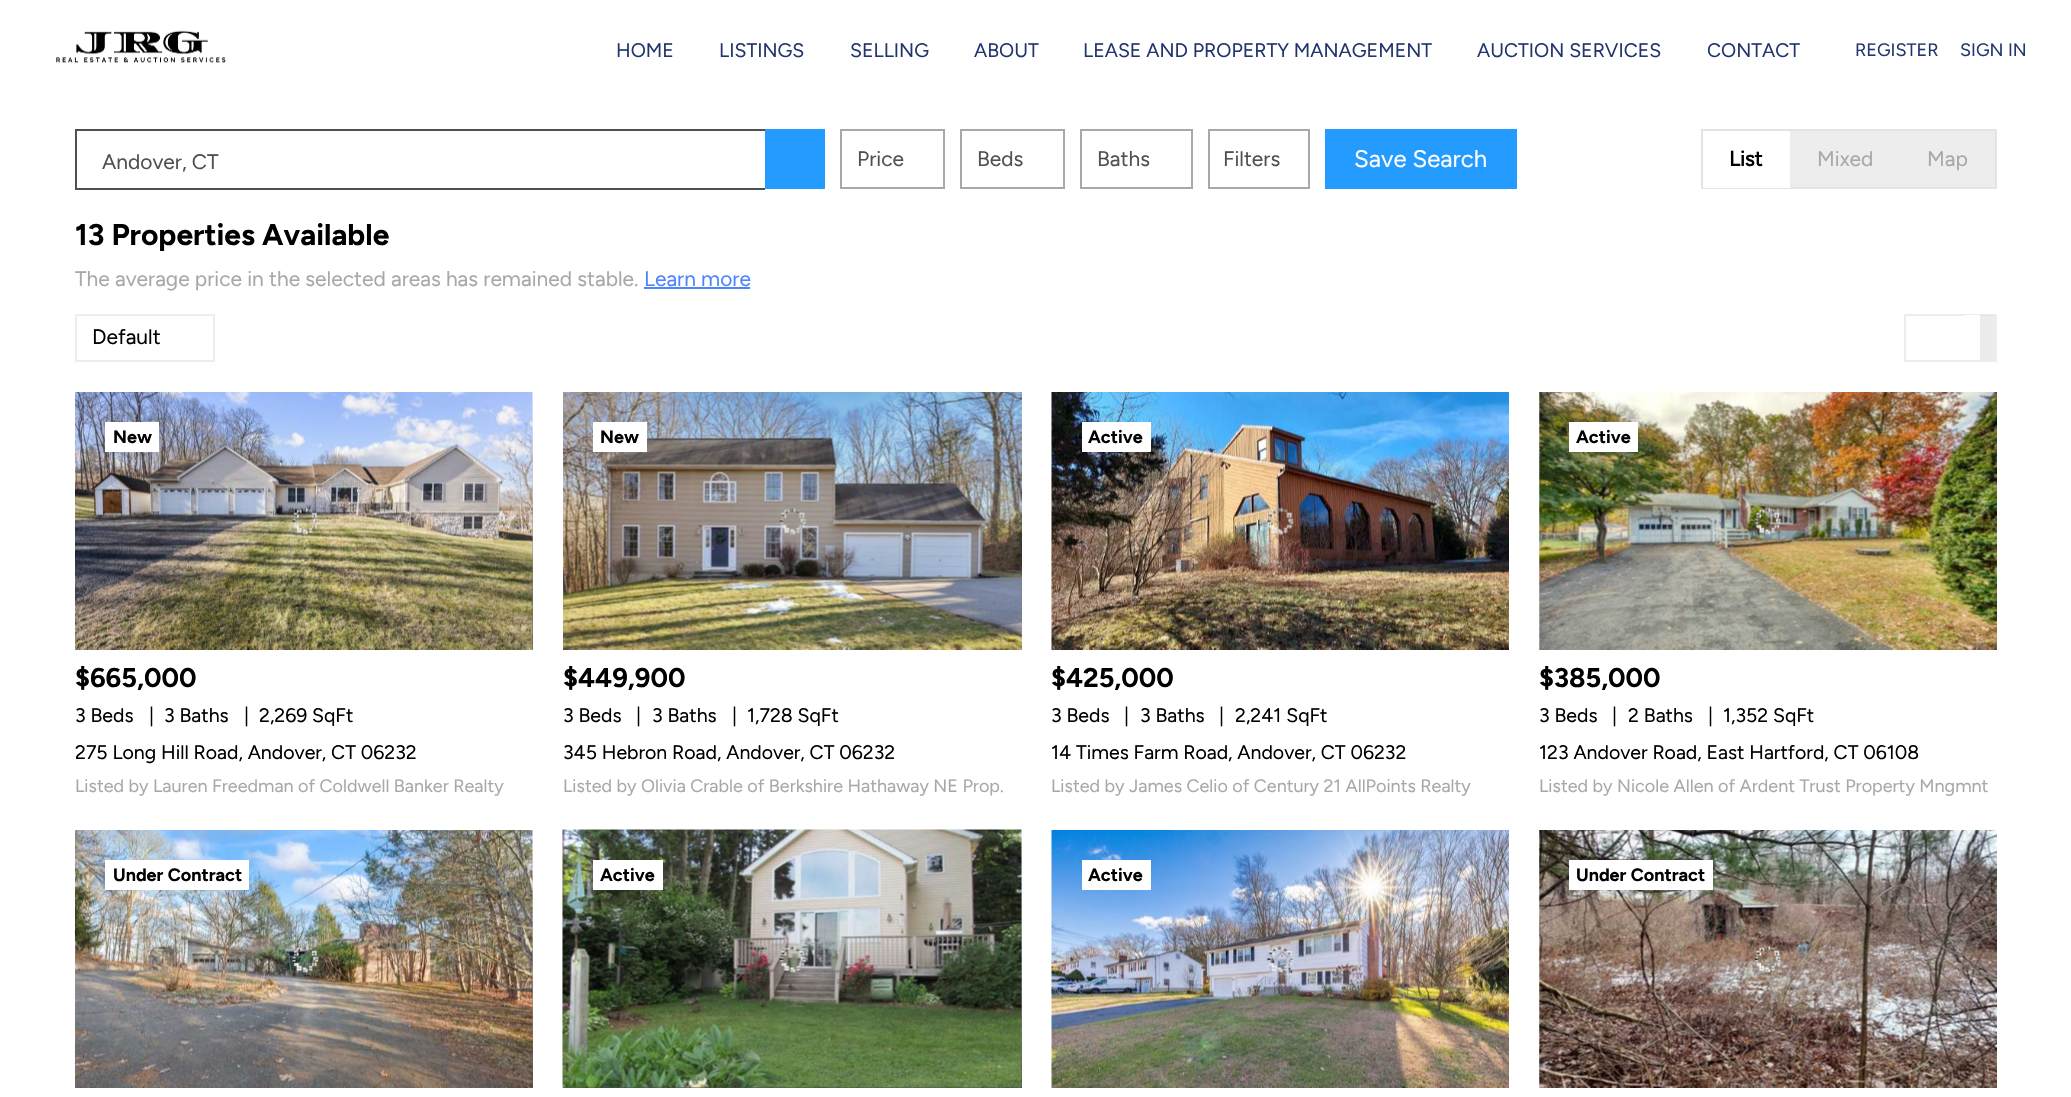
void draw(SkCanvas* c) {
SkPaint p;
p.setAntiAlias(true);
auto F=[&](const char* family, int weight, float size, bool italic = false){SkFontStyle style(weight, SkFontStyle::kNormal_Width,italic ? SkFontStyle::kItalic_Slant : SkFontStyle::kUpright_Slant);SkFont result(fontMgr->matchFamilyStyle(family, style), size);result.setSubpixel(true);return result;};
auto T=[&](const char* s, float x, float y, const SkFont& font){c->drawString(s, x, y, font, p);};
auto R=[&](float x, float y, float w, float h){c->drawRect(SkRect::MakeXYWH(x, y, w, h), p);};
auto I=[&](const char* path, float x, float y, float w, float h){auto image = SkImages::DeferredFromEncodedData(SkData::MakeFromFileName(path));c->drawImageRect(image, SkRect::MakeXYWH(x, y, w, h), SkSamplingOptions());};
c->clear(0xffffffff);
I("1.png",56,30,170,33);
auto f1 = F("Figtree",400,19.5);
p.setColor(0xff21356e);
T("HOME",616,57,f1);
T("LISTINGS",719,57,f1);
T("SELLING",850,57,f1);
T("ABOUT",974,57,f1);
T("LEASE AND PROPERTY MANAGEMENT",1083,57,f1);
T("AUCTION SERVICES",1477,57,f1);
T("CONTACT",1707,57,f1);
auto f2 = F("Figtree",400,18);
T("REGISTER",1855,56,f2);
T("SIGN IN",1960,56,f2);
p.setColor(0xff505050);
R(75,129,690,2);
R(75,188,690,2);
R(75,129,2,60);
p.setColor(0xff249bff);
R(765,129,60,60);
auto f3 = F("Figtree",400,21);
p.setColor(0xff505050);
T("Andover, CT",102,169,f3);
p.setStroke(true);
p.setStrokeWidth(2);
p.setColor(0xffa8a8a8);
c->drawRect(SkRect::MakeXYWH(841,130,103,58),p);
p.setStroke(false);
p.setColor(0xff505050);
T("Price",857,166,f3);
p.setStroke(true);
p.setColor(0xffa8a8a8);
c->drawRect(SkRect::MakeXYWH(961,130,103,58),p);
p.setStroke(false);
p.setColor(0xff505050);
T("Beds",977,166,f3);
p.setStroke(true);
p.setColor(0xffa8a8a8);
c->drawRect(SkRect::MakeXYWH(1081,130,111,58),p);
p.setStroke(false);
p.setColor(0xff505050);
T("Baths",1097,166,f3);
p.setStroke(true);
p.setColor(0xffa8a8a8);
c->drawRect(SkRect::MakeXYWH(1209,130,100,58),p);
p.setStroke(false);
p.setColor(0xff505050);
T("Filters",1223,166,f3);
p.setColor(0xff249bff);
R(1325,129,192,60);
auto f4 = F("Figtree",400,24);
p.setColor(0xffffffff);
T("Save Search",1354,167,f4);
p.setColor(0xffededed);
R(1790,131,205,56);
p.setStroke(true);
p.setColor(0xffe4e4e4);
c->drawRect(SkRect::MakeXYWH(1702,130,294,58),p);
p.setStroke(false);
p.setColor(0xffffffff);
R(1703,187,87,1);
auto f5 = F("Figtree",700,21);
p.setColor(0xff000000);
T("List",1729,166,f5);
p.setColor(0xffa8a8a8);
T("Mixed",1817,166,f3);
T("Map",1927,166,f3);
auto f6 = F("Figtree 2",700,30);
p.setColor(0xff000000);
T("13 Properties Available",75,245,f6);
p.setColor(0xffa8a8a8);
T("The average price in the selected areas has remained stable.",75,286,f3);
p.setColor(0xff4c84ff);
T("Learn more",644,286,f3);
R(644,287,106,2);
p.setStroke(true);
p.setColor(0xffededed);
c->drawRect(SkRect::MakeXYWH(76,315,138,46),p);
p.setStroke(false);
p.setColor(0xff000000);
T("Default",92,344,f3);
p.setStroke(true);
p.setColor(0xffededed);
c->drawRect(SkRect::MakeXYWH(1905,315,91,46),p);
p.setStroke(false);
p.setColor(0xffffffff);
R(1965,315,15,1);
p.setColor(0x80dadada);
R(1980,315,15,45);
{
const SkColor colors[] = {0xffffffff,0xff4d4d4d};
const float stops[] = {0,1};
const SkPoint ends[] = {{304,392}, {304,650}};
p.setShader(SkGradientShader::MakeLinear(ends, colors, stops, 2, SkTileMode::kClamp));
p.setAlpha(255);
}
R(532,392,1,258);
I("2.png",75,392,458,258);
I("3.png",292,507,27,28);
p.setShader(nullptr);
p.setColor(0xffffffff);
R(105,422,54,30);
auto f7 = F("Figtree 2",700,18);
p.setColor(0xff000000);
T("New",113,443,f7);
auto f8 = F("Figtree 2",700,27);
T("$665,000",75,687,f8);
T("3 Beds",75,722,f1);
T("|",149,722,f1);
T("3 Baths",164,722,f1);
T("|",244,722,f1);
T("2,269 SqFt",259,722,f1);
T("275 Long Hill Road, Andover, CT 06232",75,759,f1);
p.setColor(0xffa8a8a8);
T("Listed by Lauren Freedman of Coldwell Banker Realty",75,792,f2);
I("4.png",563,392,459,258);
I("5.png",779,508,28,27);
p.setColor(0xffffffff);
R(593,422,54,30);
p.setColor(0xff000000);
T("New",600,443,f7);
T("$449,900",563,687,f8);
T("3 Beds",563,722,f1);
T("|",636,722,f1);
T("3 Baths",652,722,f1);
T("|",732,722,f1);
T("1,728 SqFt",747,722,f1);
T("345 Hebron Road, Andover, CT 06232",563,759,f1);
p.setColor(0xffa8a8a8);
T("Listed by Olivia Crable of Berkshire Hathaway NE Prop.",563,792,f2);
I("6.png",1051,392,458,258);
I("7.png",1266,507,28,28);
p.setColor(0xffffffff);
R(1082,422,69,30);
p.setColor(0xff000000);
T("Active",1088,443,f7);
T("$425,000",1051,687,f8);
T("3 Beds",1051,722,f1);
T("|",1124,722,f1);
T("3 Baths",1140,722,f1);
T("|",1219,722,f1);
T("2,241 SqFt",1235,722,f1);
T("14 Times Farm Road, Andover, CT 06232",1051,759,f1);
p.setColor(0xffa8a8a8);
T("Listed by James Celio of Century 21 AllPoints Realty",1051,792,f2);
I("8.png",1539,392,458,258);
I("9.png",1754,507,27,28);
p.setColor(0xffffffff);
R(1569,422,69,30);
p.setColor(0xff000000);
T("Active",1576,443,f7);
T("$385,000",1539,687,f8);
T("3 Beds",1539,722,f1);
T("|",1612,722,f1);
T("2 Baths",1628,722,f1);
T("|",1708,722,f1);
T("1,352 SqFt",1723,722,f1);
T("123 Andover Road, East Hartford, CT 06108",1539,759,f1);
p.setColor(0xffa8a8a8);
T("Listed by Nicole Allen of Ardent Trust Property Mngmnt",1539,792,f2);
{
const SkColor colors[] = {0xffffffff,0xff4d4d4d};
const float stops[] = {0,1};
const SkPoint ends[] = {{304,830}, {304,1088}};
p.setShader(SkGradientShader::MakeLinear(ends, colors, stops, 2, SkTileMode::kClamp));
p.setAlpha(255);
}
R(532,830,1,258);
I("10.png",75,830,458,258);
I("11.png",292,946,27,27);
p.setShader(nullptr);
p.setColor(0xffffffff);
R(105,860,144,30);
p.setColor(0xff000000);
T("Under Contract",113,881,f7);
{
const SkColor colors[] = {0xffffffff,0xff4d4d4d};
const float stops[] = {0,1};
const SkPoint ends[] = {{792,830}, {792,1088}};
p.setShader(SkGradientShader::MakeLinear(ends, colors, stops, 2, SkTileMode::kClamp));
p.setAlpha(255);
}
R(563,834,459,254);
I("12.png",562,829,460,259);
I("13.png",779,946,28,27);
p.setShader(nullptr);
p.setColor(0xffffffff);
R(593,860,70,30);
p.setColor(0xff000000);
T("Active",600,881,f7);
I("14.png",1051,830,458,258);
I("15.png",1266,946,28,27);
p.setColor(0xffffffff);
R(1082,860,69,30);
p.setColor(0xff000000);
T("Active",1088,881,f7);
I("16.png",1539,830,458,258);
I("17.png",1754,946,27,27);
p.setColor(0xffffffff);
R(1569,860,144,30);
p.setColor(0xff000000);
T("Under Contract",1576,881,f7);
}
